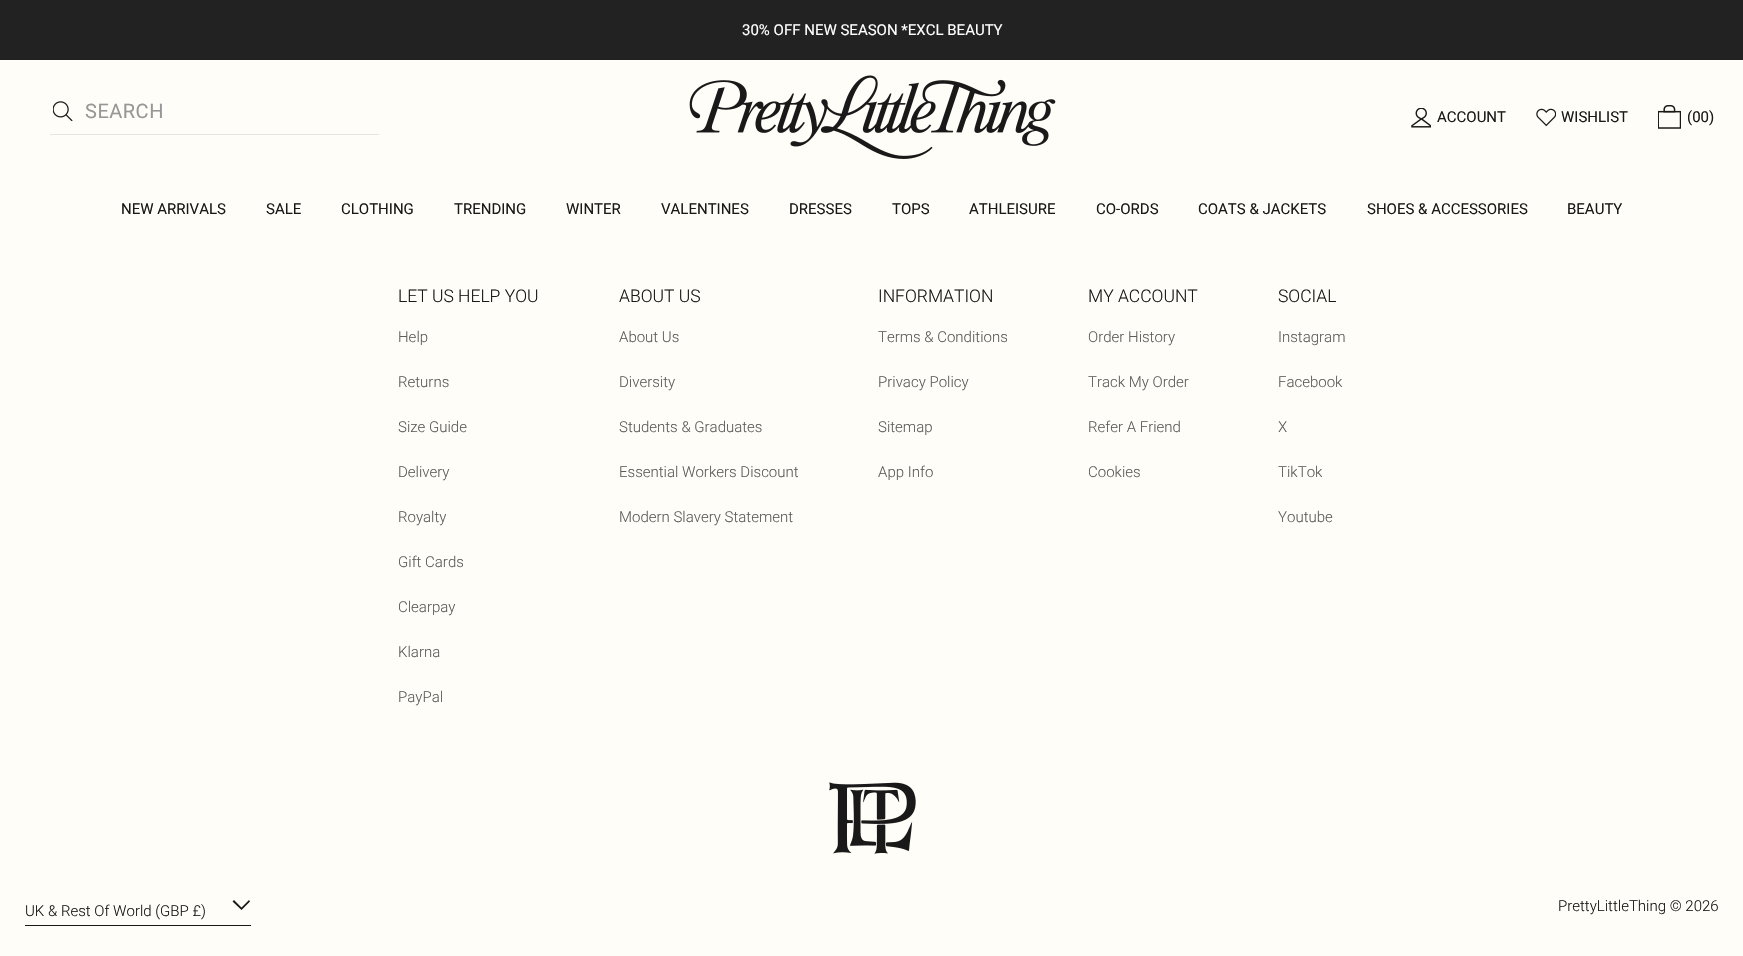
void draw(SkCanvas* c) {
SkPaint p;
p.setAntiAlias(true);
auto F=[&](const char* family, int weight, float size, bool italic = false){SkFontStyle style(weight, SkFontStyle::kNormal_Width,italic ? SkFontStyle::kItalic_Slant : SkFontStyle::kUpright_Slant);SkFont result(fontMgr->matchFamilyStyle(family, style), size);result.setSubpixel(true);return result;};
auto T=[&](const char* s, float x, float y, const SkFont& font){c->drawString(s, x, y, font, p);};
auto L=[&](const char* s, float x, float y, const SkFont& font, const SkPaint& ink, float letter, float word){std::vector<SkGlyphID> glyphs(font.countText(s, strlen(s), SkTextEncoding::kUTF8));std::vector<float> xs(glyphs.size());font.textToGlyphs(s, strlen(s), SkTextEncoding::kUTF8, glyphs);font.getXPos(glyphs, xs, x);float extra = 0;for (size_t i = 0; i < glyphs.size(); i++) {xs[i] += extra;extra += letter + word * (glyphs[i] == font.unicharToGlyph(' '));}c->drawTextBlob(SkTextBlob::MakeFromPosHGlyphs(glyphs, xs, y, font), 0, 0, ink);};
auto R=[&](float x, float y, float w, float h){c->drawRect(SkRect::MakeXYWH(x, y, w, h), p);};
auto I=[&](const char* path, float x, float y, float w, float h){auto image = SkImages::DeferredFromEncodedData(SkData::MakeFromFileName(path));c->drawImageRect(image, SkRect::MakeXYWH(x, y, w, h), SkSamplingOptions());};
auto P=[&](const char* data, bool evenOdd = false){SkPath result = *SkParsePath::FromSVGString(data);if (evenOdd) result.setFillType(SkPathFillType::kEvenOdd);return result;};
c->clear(0xfffffdf7);
p.setColor(0xff222222);
R(0,0,1743,60);
auto f1 = F("Roboto",400,15);
p.setColor(0xffffffff);
T("30% OFF NEW SEASON *EXCL BEAUTY",742,35,f1);
p.setColor(0xffe8e6e1);
R(50,134,329,1);
I("1.png",53,101,20,20);
auto f2 = F("Roboto",400,20);
p.setColor(0xff979797);
L("SEARCH",85,118,f2,p,.5,0);
I("2.png",689,75,367,84);
I("3.png",1411,108,20,20);
p.setColor(0xff191919);
T("ACCOUNT",1437,122,f1);
I("4.png",1536,108,20,19);
T("WISHLIST",1561,122,f1);
I("5.png",1658,105,23,24);
T("(00)",1687,122,f1);
T("NEW ARRIVALS",121,214,f1);
T("SALE",266,214,f1);
T("CLOTHING",341,214,f1);
T("TRENDING",454,214,f1);
T("WINTER",566,214,f1);
T("VALENTINES",661,214,f1);
T("DRESSES",789,214,f1);
T("TOPS",892,214,f1);
T("ATHLEISURE",969,214,f1);
T("CO-ORDS",1096,214,f1);
T("COATS & JACKETS",1198,214,f1);
T("SHOES & ACCESSORIES",1367,214,f1);
T("BEAUTY",1567,214,f1);
auto f3 = F("Roboto",300,17.5);
T("LET US HELP YOU",398,302,f3);
auto f4 = F("Roboto",300,15);
p.setColor(0xff5d5d5d);
T("Help",398,342,f4);
T("Returns",398,387,f4);
T("Size Guide",398,432,f4);
T("Delivery",398,477,f4);
T("Royalty",398,522,f4);
T("Gift Cards",398,567,f4);
T("Clearpay",398,612,f4);
T("Klarna",398,657,f4);
T("PayPal",398,702,f4);
p.setColor(0xff191919);
T("ABOUT US",619,302,f3);
p.setColor(0xff5d5d5d);
T("About Us",619,342,f4);
T("Diversity",619,387,f4);
T("Students & Graduates",619,432,f4);
T("Essential Workers Discount",619,477,f4);
T("Modern Slavery Statement",619,522,f4);
p.setColor(0xff191919);
T("INFORMATION",878,302,f3);
p.setColor(0xff5d5d5d);
T("Terms & Conditions",878,342,f4);
T("Privacy Policy",878,387,f4);
T("Sitemap",878,432,f4);
T("App Info",878,477,f4);
p.setColor(0xff191919);
T("MY ACCOUNT",1088,302,f3);
p.setColor(0xff5d5d5d);
T("Order History",1088,342,f4);
T("Track My Order",1088,387,f4);
T("Refer A Friend",1088,432,f4);
T("Cookies",1088,477,f4);
p.setColor(0xff191919);
T("SOCIAL",1278,302,f3);
p.setColor(0xff5d5d5d);
T("Instagram",1278,342,f4);
T("Facebook",1278,387,f4);
T("X",1278,432,f4);
T("TikTok",1278,477,f4);
T("Youtube",1278,522,f4);
I("6.png",829,782,87,72);
p.setColor(0xff191919);
R(25,925,226,1);
T("UK & Rest Of World (GBP £)",25,916,f4);
c->drawPath(P("M241.5 910l8.5-8.5l-1-1.5l-7.5 7.5l-7.5-7.5l-1.5 1.5z"),p);
T("PrettyLittleThing © 2026",1558,911,f4);
}
